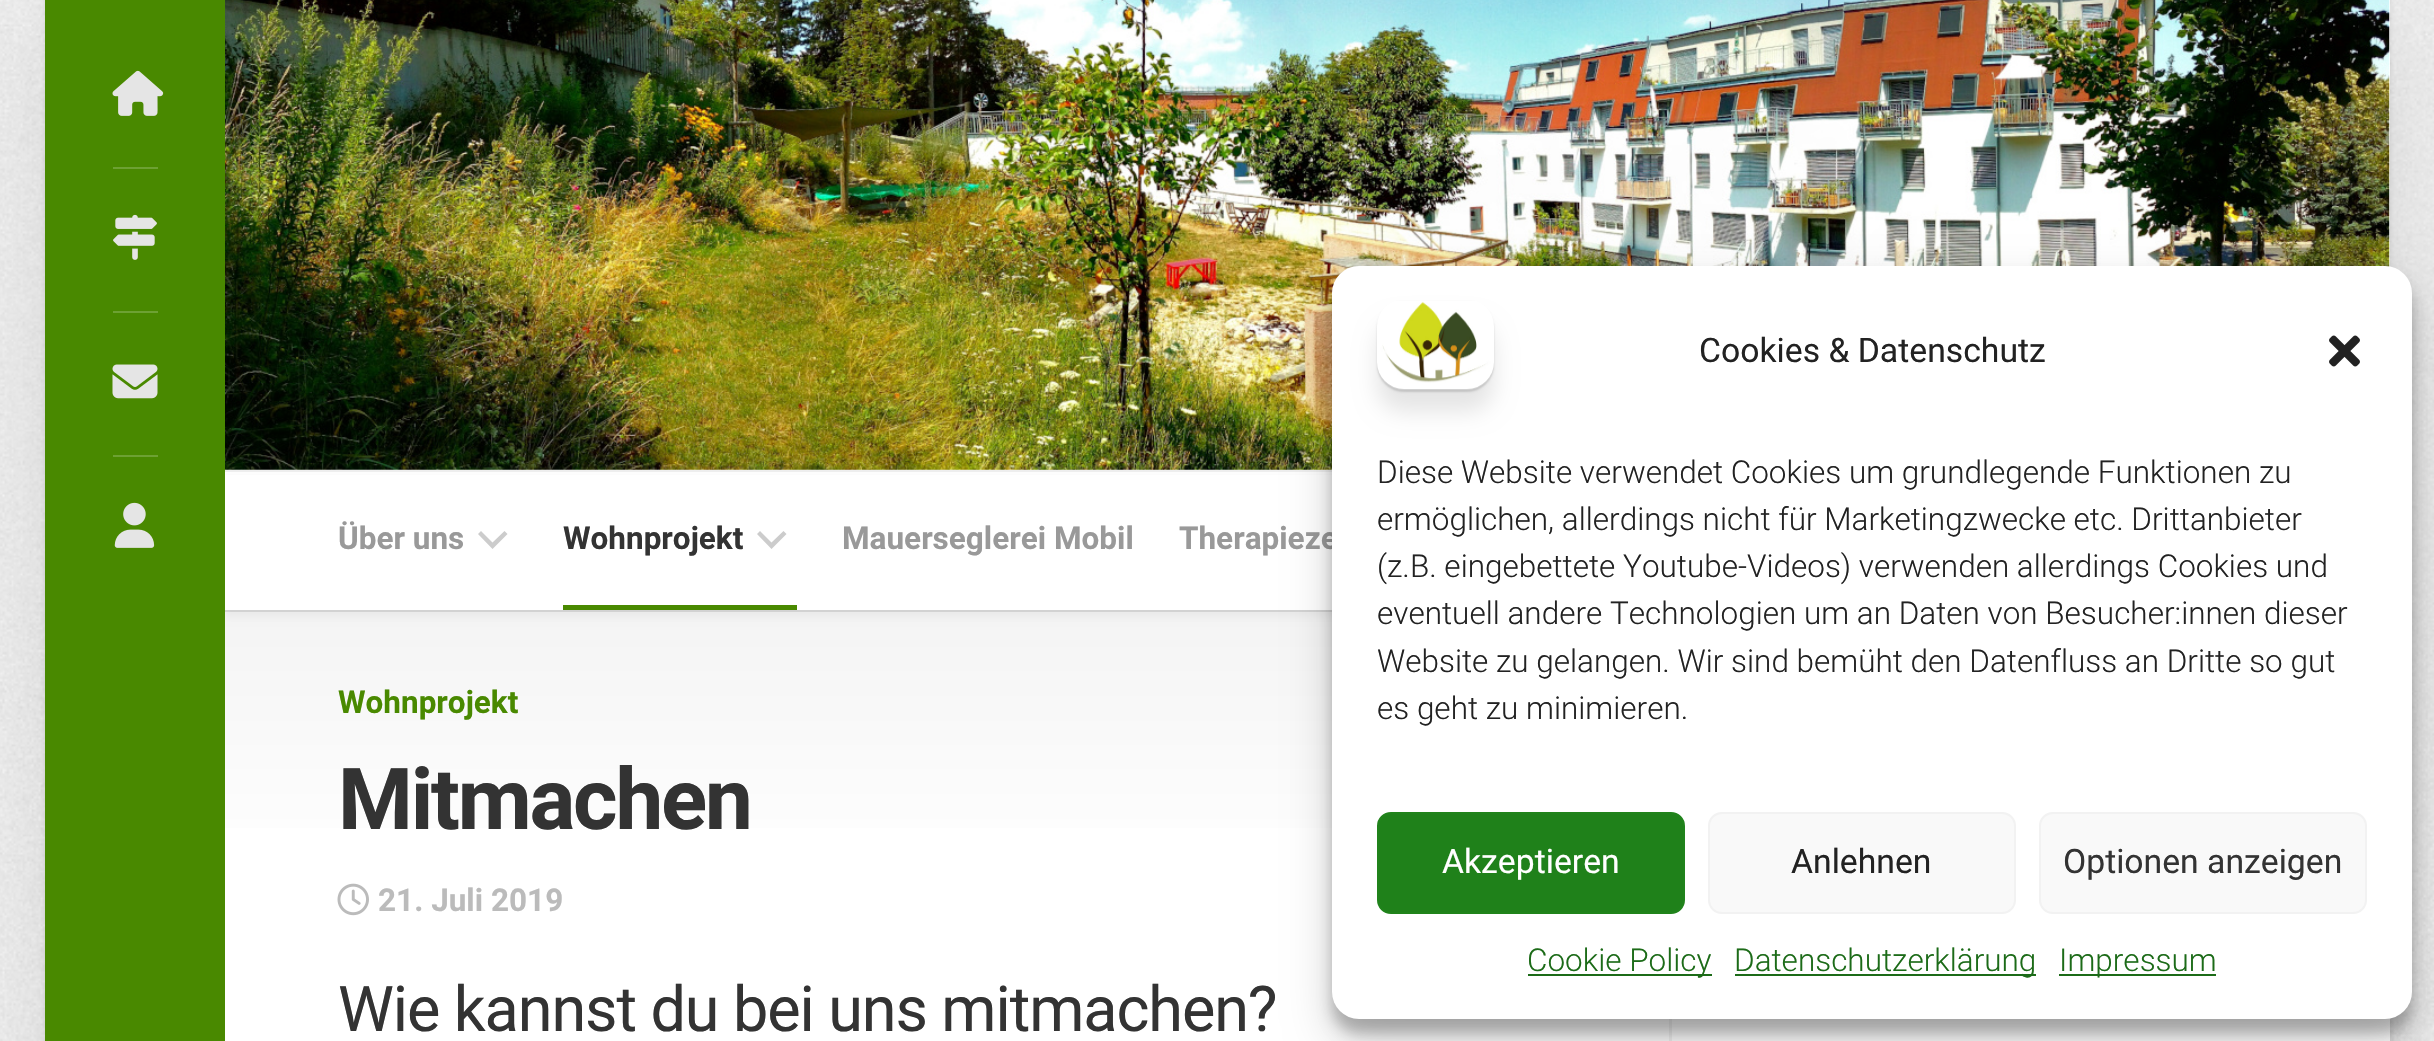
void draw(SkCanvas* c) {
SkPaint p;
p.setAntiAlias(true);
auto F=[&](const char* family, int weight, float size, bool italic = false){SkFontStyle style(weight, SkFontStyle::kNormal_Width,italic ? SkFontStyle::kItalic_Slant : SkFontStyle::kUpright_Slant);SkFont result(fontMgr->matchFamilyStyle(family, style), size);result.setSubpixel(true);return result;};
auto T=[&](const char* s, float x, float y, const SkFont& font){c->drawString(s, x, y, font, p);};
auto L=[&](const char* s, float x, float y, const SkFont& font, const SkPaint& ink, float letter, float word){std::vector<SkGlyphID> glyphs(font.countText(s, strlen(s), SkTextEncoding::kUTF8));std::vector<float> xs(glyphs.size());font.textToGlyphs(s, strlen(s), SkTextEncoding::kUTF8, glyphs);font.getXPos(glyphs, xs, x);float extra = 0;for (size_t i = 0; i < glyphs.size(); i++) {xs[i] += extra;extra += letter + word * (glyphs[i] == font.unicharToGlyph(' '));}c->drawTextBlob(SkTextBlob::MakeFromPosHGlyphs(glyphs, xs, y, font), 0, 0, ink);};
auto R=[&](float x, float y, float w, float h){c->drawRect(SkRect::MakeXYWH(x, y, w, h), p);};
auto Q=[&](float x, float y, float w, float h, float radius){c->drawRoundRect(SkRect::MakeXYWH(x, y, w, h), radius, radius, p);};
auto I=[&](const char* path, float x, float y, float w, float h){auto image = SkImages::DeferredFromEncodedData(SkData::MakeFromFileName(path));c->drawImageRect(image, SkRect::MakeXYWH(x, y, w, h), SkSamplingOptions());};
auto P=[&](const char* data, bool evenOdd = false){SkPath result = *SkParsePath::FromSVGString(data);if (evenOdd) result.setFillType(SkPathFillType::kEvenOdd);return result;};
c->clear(0xffffffff);
I("1.png",0,0,2434,1041);
p.setColor(0x1a000000);
p.setMaskFilter(SkMaskFilter::MakeBlur(kNormal_SkBlurStyle, 2));
c->drawRoundRect(SkRect::MakeXYWH(45,-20,2345,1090),23,23,p);
p.setMaskFilter(nullptr);
p.setMaskFilter(SkMaskFilter::MakeBlur(kNormal_SkBlurStyle, 45));
c->drawRoundRect(SkRect::MakeXYWH(45,23,2345,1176),23,23,p);
p.setMaskFilter(nullptr);
c->save();
c->clipPath(P("M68-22h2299c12.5 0 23 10.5 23 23v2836c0 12.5-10.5 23-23 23h-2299c-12.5 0-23-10.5-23-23v-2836c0-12.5 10.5-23 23-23z"),true);
p.setMaskFilter(SkMaskFilter::MakeBlur(kNormal_SkBlurStyle, 11));
c->drawRect(SkRect::MakeXYWH(225,-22,2165,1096),p);
p.setMaskFilter(nullptr);
c->restore();
p.setColor(0xffffffff);
R(225,0,2165,1041);
I("6.png",225,0,2165,470);
{
const SkColor colors[] = {0xfff4f4f4,0x00f4f4f4};
const float stops[] = {0,1};
const SkPoint ends[] = {{2390,610}, {2390,880}};
p.setShader(SkGradientShader::MakeLinear(ends, colors, stops, 2, SkTileMode::kClamp));
p.setAlpha(255);
}
R(225,610,1107,218);
p.setShader(nullptr);
p.setColor(0x0a000000);
p.setMaskFilter(SkMaskFilter::MakeBlur(kNormal_SkBlurStyle, 3.5));
c->drawRect(SkRect::MakeXYWH(225,477,2165,140),p);
p.setMaskFilter(nullptr);
p.setColor(0xff498900);
R(45,0,180,1041);
I("2.png",112,70,52,46);
p.setColor(0xff6da133);
R(113,167,45,2);
I("3.png",113,214,44,46);
R(113,311,45,2);
I("4.png",112,364,46,35);
R(113,455,45,2);
I("5.png",114,502,41,46);
p.setColor(0x1a000000);
c->drawPath(P("M225 610v2h2165v-139v137z"),p);
p.setColor(0xffffffff);
R(225,475,1107,135);
p.setColor(0xffeeeeee);
R(225,470,1107,2);
auto f1 = F("Roboto",700,31.5);
p.setColor(0xff999999);
T("Über uns",338,549,f1);
p.setColor(0xffcccccc);
c->drawPath(P("M492.5 542.5l12-11.5l3 3l-15 15l-14.5-15l3-3z",true),p);
p.setColor(0xff498900);
R(563,605,234,5);
p.setColor(0xff333333);
T("Wohnprojekt",563,549,f1);
p.setColor(0xffcccccc);
c->drawPath(P("M771.5 542.5l12-11.5l3 3l-15 15l-14.5-15l3-3z",true),p);
p.setColor(0xff999999);
T("Mauerseglerei Mobil",842,549,f1);
T("Therapieze",1179,549,f1);
p.setColor(0xfff2f2f2);
R(1669,1019,3,22);
p.setColor(0xff498900);
T("Wohnprojekt",338,713,f1);
auto f2 = F("Roboto",700,85.5);
p.setColor(0xff333333);
L("Mitmachen",338,829,f2,p,-2.25,0);
I("7.png",337,883,32,33);
p.setColor(0xffbbbbbb);
T("21. Juli 2019",378,911,f1);
auto f3 = F("Roboto",400,63);
p.setColor(0xff333333);
L("Wie kannst du bei uns mitmachen?",338,1031,f3,p,-1.1,0);
p.setColor(0x3b000000);
p.setMaskFilter(SkMaskFilter::MakeBlur(kNormal_SkBlurStyle, 7));
c->drawRoundRect(SkRect::MakeXYWH(1332,279,1080,754),27,27,p);
p.setMaskFilter(nullptr);
p.setColor(0x30000000);
p.setMaskFilter(SkMaskFilter::MakeBlur(kNormal_SkBlurStyle, 22.5));
c->drawRoundRect(SkRect::MakeXYWH(1332,288,1080,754),27,27,p);
p.setMaskFilter(nullptr);
p.setColor(0xffffffff);
Q(1332,266,1080,753,27);
p.setColor(0x1a000000);
p.setMaskFilter(SkMaskFilter::MakeBlur(kNormal_SkBlurStyle, 11));
c->drawRoundRect(SkRect::MakeXYWH(1377,322,117,90),27,27,p);
p.setMaskFilter(nullptr);
p.setColor(0x26000000);
p.setMaskFilter(SkMaskFilter::MakeBlur(kNormal_SkBlurStyle, 1));
c->drawRoundRect(SkRect::MakeXYWH(1377,302,117,90),27,27,p);
p.setMaskFilter(nullptr);
I("8.png",1377,301,117,89);
auto f4 = F("Roboto",400,33.75);
p.setColor(0xff222222);
T("Cookies & Datenschutz",1699,362,f4);
I("9.png",2329,335,31,32);
auto f5 = F("Roboto",300,31.5);
T("Diese Website verwendet Cookies um grundlegende Funktionen zu",1377,483,f5);
T("ermöglichen, allerdings nicht für Marketingzwecke etc. Drittanbieter",1377,530,f5);
T("(z.B. eingebettete Youtube-Videos) verwenden allerdings Cookies und",1377,577,f5);
T("eventuell andere Technologien um an Daten von Besucher:innen dieser",1377,624,f5);
T("Website zu gelangen. Wir sind bemüht den Datenfluss an Dritte so gut",1377,672,f5);
T("es geht zu minimieren.",1377,719,f5);
p.setColor(0xff1f811a);
c->drawRoundRect(SkRect::MakeXYWH(1378,813,306,100),13,13,p);
p.setStroke(true);
p.setStrokeWidth(2);
p.setColor(0xff20831b);
c->drawRoundRect(SkRect::MakeXYWH(1378,813,306,100),13,13,p);
p.setStroke(false);
p.setColor(0xffffffff);
T("Akzeptieren",1442,873,f4);
p.setColor(0xfff9f9f9);
c->drawRoundRect(SkRect::MakeXYWH(1709,813,306,100),13,13,p);
p.setStroke(true);
p.setColor(0xfff2f2f2);
c->drawRoundRect(SkRect::MakeXYWH(1709,813,306,100),13,13,p);
p.setStroke(false);
p.setColor(0xff222222);
T("Anlehnen",1791,873,f4);
p.setColor(0xfff9f9f9);
c->drawRoundRect(SkRect::MakeXYWH(2040,813,326,100),13,13,p);
p.setStroke(true);
p.setColor(0xfff2f2f2);
c->drawRoundRect(SkRect::MakeXYWH(2040,813,326,100),13,13,p);
p.setStroke(false);
p.setColor(0xff333333);
T("Optionen anzeigen",2063,873,f4);
p.setColor(0xff1c6b18);
R(1528,974,184,2);
T("Cookie Policy",1527,971,f5);
R(1735,974,301,2);
T("Datenschutzerklärung",1734,971,f5);
R(2059,974,157,2);
T("Impressum",2059,971,f5);
}
